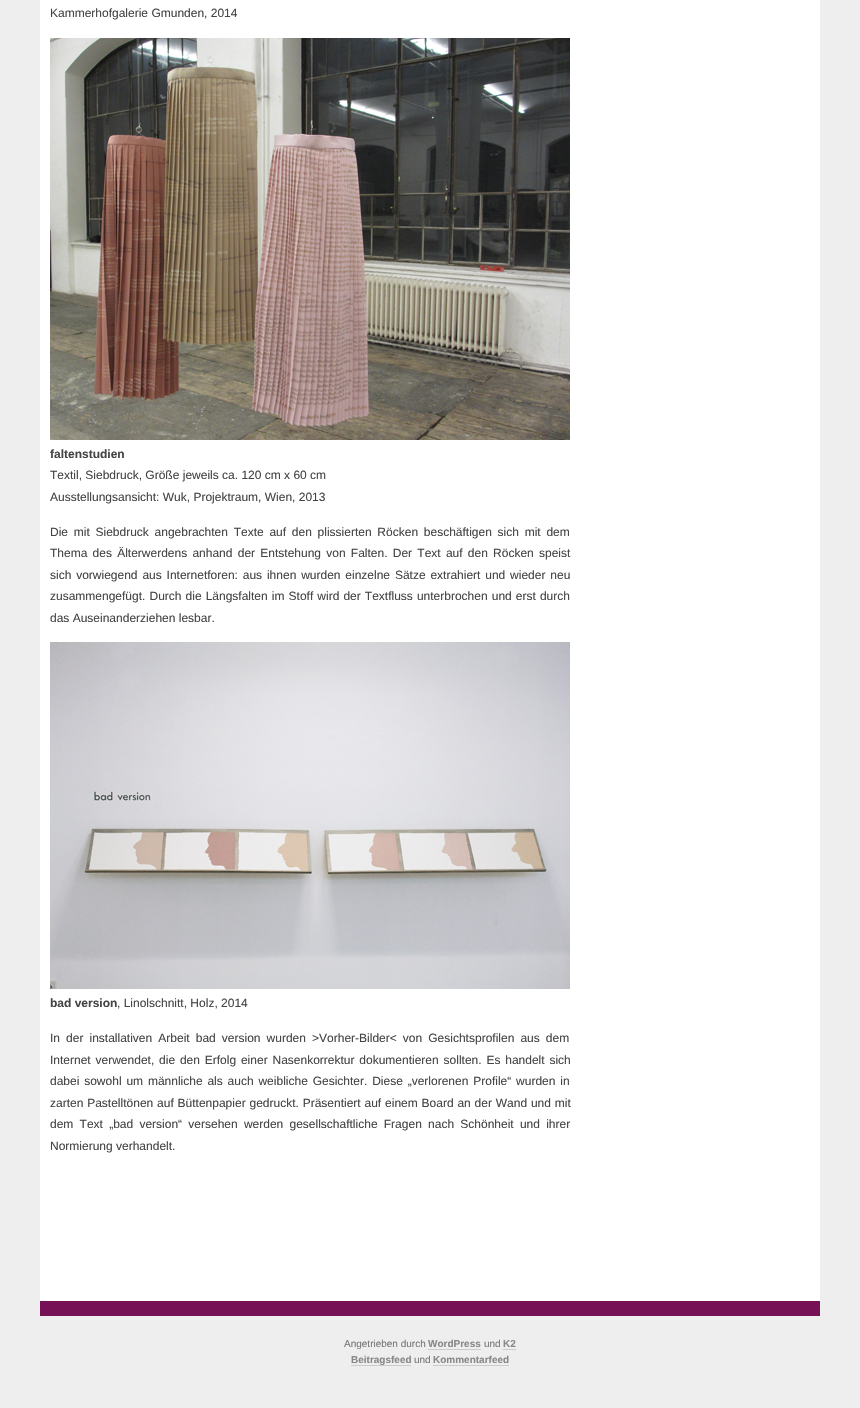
void draw(SkCanvas* c) {
SkPaint p;
p.setAntiAlias(true);
auto F=[&](const char* family, int weight, float size, bool italic = false){SkFontStyle style(weight, SkFontStyle::kNormal_Width,italic ? SkFontStyle::kItalic_Slant : SkFontStyle::kUpright_Slant);SkFont result(fontMgr->matchFamilyStyle(family, style), size);result.setSubpixel(true);return result;};
auto T=[&](const char* s, float x, float y, const SkFont& font){c->drawString(s, x, y, font, p);};
auto L=[&](const char* s, float x, float y, const SkFont& font, const SkPaint& ink, float letter, float word){std::vector<SkGlyphID> glyphs(font.countText(s, strlen(s), SkTextEncoding::kUTF8));std::vector<float> xs(glyphs.size());font.textToGlyphs(s, strlen(s), SkTextEncoding::kUTF8, glyphs);font.getXPos(glyphs, xs, x);float extra = 0;for (size_t i = 0; i < glyphs.size(); i++) {xs[i] += extra;extra += letter + word * (glyphs[i] == font.unicharToGlyph(' '));}c->drawTextBlob(SkTextBlob::MakeFromPosHGlyphs(glyphs, xs, y, font), 0, 0, ink);};
auto R=[&](float x, float y, float w, float h){c->drawRect(SkRect::MakeXYWH(x, y, w, h), p);};
auto I=[&](const char* path, float x, float y, float w, float h){auto image = SkImages::DeferredFromEncodedData(SkData::MakeFromFileName(path));c->drawImageRect(image, SkRect::MakeXYWH(x, y, w, h), SkSamplingOptions());};
c->clear(0xffeeeeee);
p.setColor(0xffffffff);
R(40,0,780,1301);
p.setColor(0xff771155);
R(40,1301,780,15);
auto f1 = F("Liberation Sans",400,12);
p.setColor(0xff444444);
T("Kammerhofgalerie Gmunden, 2014",50,17,f1);
I("1.png",50,38,520,402);
auto f2 = F("Liberation Sans",700,12);
T("faltenstudien",50,458,f2);
T("Textil, Siebdruck, Größe jeweils ca. 120 cm x 60 cm",50,479,f1);
T("Ausstellungsansicht: Wuk, Projektraum, Wien, 2013",50,501,f1);
L("Die mit Siebdruck angebrachten Texte auf den plissierten Röcken beschäftigen sich mit dem",50,536,f1,p,0,2.4);
L("Thema des Älterwerdens anhand der Entstehung von Falten. Der Text auf den Röcken speist",50,557,f1,p,0,1.9);
L("sich vorwiegend aus Internetforen: aus ihnen wurden einzelne Sätze extrahiert und wieder neu",50,579,f1,p,0,1.5);
L("zusammengefügt. Durch die Längsfalten im Stoff wird der Textfluss unterbrochen und erst durch",50,600,f1,p,0,.75);
T("das Auseinanderziehen lesbar.",50,622,f1);
I("2.png",50,642,520,347);
T("bad version",50,1007,f2);
T(", Linolschnitt, Holz, 2014",117,1007,f1);
L("In der installativen Arbeit bad version wurden >Vorher-Bilder< von Gesichtsprofilen aus dem",50,1042,f1,p,0,2.75);
L("Internet verwendet, die den Erfolg einer Nasenkorrektur dokumentieren sollten. Es handelt sich",50,1064,f1,p,0,1.5);
L("dabei sowohl um männliche als auch weibliche Gesichter. Diese „verlorenen Profile“ wurden in",50,1085,f1,p,0,1.5);
L("zarten Pastelltönen auf Büttenpapier gedruckt. Präsentiert auf einem Board an der Wand und mit",50,1107,f1,p,0,.5);
L("dem Text „bad version“ versehen werden gesellschaftliche Fragen nach Schönheit und ihrer",50,1128,f1,p,0,2.9);
T("Normierung verhandelt.",50,1150,f1);
auto f3 = F("Liberation Sans",400,10);
p.setColor(0xff777777);
T("Angetrieben durch",344,1347,f3);
auto f4 = F("Liberation Sans",700,10);
p.setColor(0xff888888);
T("WordPress",428,1347,f4);
p.setColor(0xffcccccc);
R(428,1349,53,1);
p.setColor(0xff777777);
T("und",484,1347,f3);
p.setColor(0xff888888);
T("K2",503,1347,f4);
p.setColor(0xffcccccc);
R(503,1349,13,1);
R(351,1365,60,1);
p.setColor(0xff888888);
T("Beitragsfeed",351,1363,f4);
p.setColor(0xff777777);
T("und",414,1363,f3);
p.setColor(0xff888888);
T("Kommentarfeed",433,1363,f4);
p.setColor(0xffcccccc);
R(433,1365,76,1);
}
